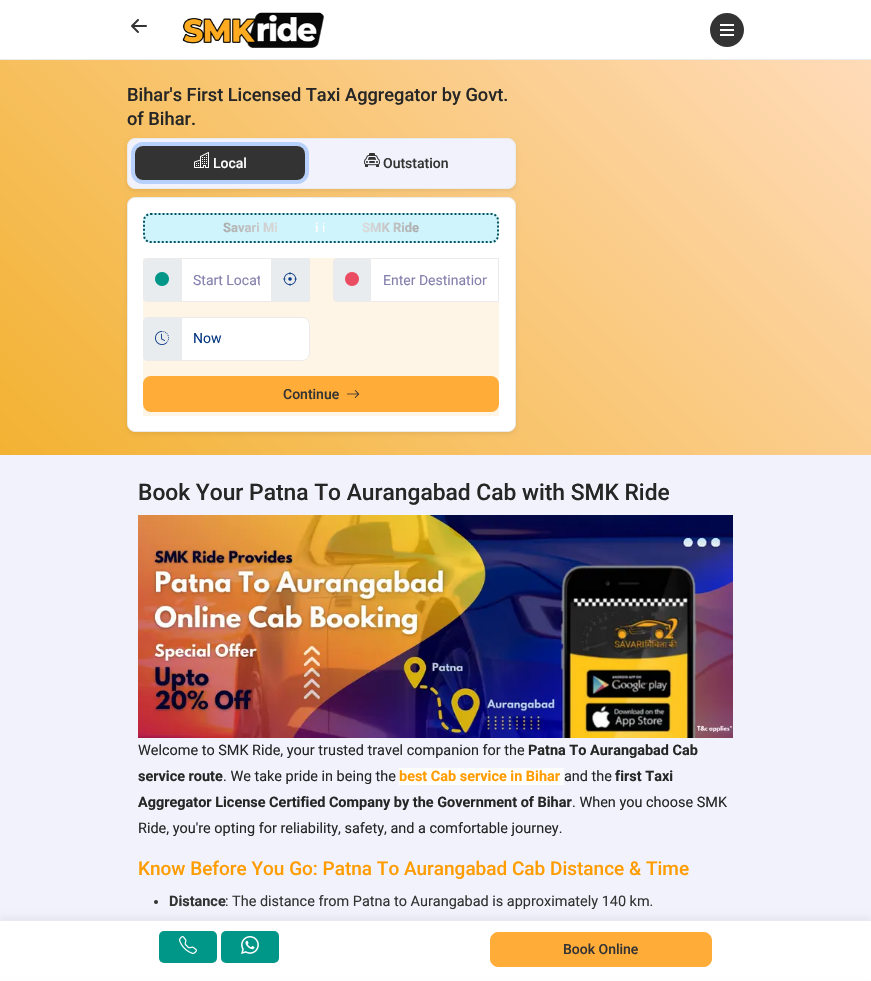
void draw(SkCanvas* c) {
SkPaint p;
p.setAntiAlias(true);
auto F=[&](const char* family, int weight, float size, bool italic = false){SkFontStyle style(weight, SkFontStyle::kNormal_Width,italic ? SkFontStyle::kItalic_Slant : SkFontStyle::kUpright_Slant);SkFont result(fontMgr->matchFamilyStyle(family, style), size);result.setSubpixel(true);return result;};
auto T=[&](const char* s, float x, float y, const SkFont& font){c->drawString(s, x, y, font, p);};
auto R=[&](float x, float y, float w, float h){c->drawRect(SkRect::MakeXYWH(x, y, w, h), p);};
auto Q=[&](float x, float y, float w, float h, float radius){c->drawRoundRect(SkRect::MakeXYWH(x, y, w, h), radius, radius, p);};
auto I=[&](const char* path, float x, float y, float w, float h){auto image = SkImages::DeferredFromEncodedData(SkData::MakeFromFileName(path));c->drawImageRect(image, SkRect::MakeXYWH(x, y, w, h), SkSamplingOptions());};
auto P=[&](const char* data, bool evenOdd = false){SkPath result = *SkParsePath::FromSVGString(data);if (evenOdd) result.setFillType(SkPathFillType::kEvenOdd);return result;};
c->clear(0xffffffff);
p.setColor(0xffebebeb);
R(0,59,871,1);
I("1.png",131,19,16,14);
I("2.png",182,12,142,36);
p.setColor(0xff333333);
c->drawCircle(727,30,17,p);
p.setColor(0xffffffff);
R(720,24,14,2);
R(720,29,14,2);
R(720,34,14,2);
{
const SkColor colors[] = {0xfff3b232,0xffffdbb9};
const float stops[] = {0,1};
const SkPoint ends[] = {{119,574}, {752,-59}};
p.setShader(SkGradientShader::MakeLinear(ends, colors, stops, 2, SkTileMode::kClamp));
p.setAlpha(255);
}
R(0,60,871,395);
auto f1 = F("Roboto",500,18.25);
p.setShader(nullptr);
p.setColor(0xff262626);
T("Bihar's First Licensed Taxi Aggregator by Govt.",127,101,f1);
T("of Bihar.",127,125,f1);
p.setColor(0x12000000);
p.setMaskFilter(SkMaskFilter::MakeBlur(kNormal_SkBlurStyle, 2));
c->drawRoundRect(SkRect::MakeXYWH(127,140,389,51),8,8,p);
p.setMaskFilter(nullptr);
p.setColor(0xfff1f2fb);
c->drawRoundRect(SkRect::MakeXYWH(127.5,138.5,388,50),7.5,7.5,p);
p.setStroke(true);
p.setStrokeWidth(1);
p.setColor(0xffebebeb);
c->drawRoundRect(SkRect::MakeXYWH(127.5,138.5,388,50),7.5,7.5,p);
p.setStrokeWidth(4);
p.setColor(0xffb8d1fc);
c->drawRoundRect(SkRect::MakeXYWH(133,144,174,38),10,10,p);
p.setStroke(false);
p.setColor(0xff333333);
Q(135,146,170,34,8);
I("3.png",194,152,15,16);
auto f2 = F("Roboto",500,14);
p.setColor(0xffffffff);
T("Local",213,168,f2);
I("4.png",364,153,16,14);
p.setColor(0xff333333);
T("Outstation",383,168,f2);
p.setColor(0x12000000);
p.setMaskFilter(SkMaskFilter::MakeBlur(kNormal_SkBlurStyle, 2));
c->drawRoundRect(SkRect::MakeXYWH(127,199,389,235),8,8,p);
p.setMaskFilter(nullptr);
p.setColor(0xffffffff);
c->drawRoundRect(SkRect::MakeXYWH(127.5,197.5,388,234),7.5,7.5,p);
p.setStroke(true);
p.setStrokeWidth(1);
p.setColor(0xffebebeb);
c->drawRoundRect(SkRect::MakeXYWH(127.5,197.5,388,234),7.5,7.5,p);
p.setStroke(false);
p.setColor(0xffcff4fc);
Q(143,213,356,30,8);
p.setStroke(true);
p.setStrokeWidth(2);
p.setColor(0xff055160);
p.setPathEffect(SkDashPathEffect::Make({{2,2}}, 0));
c->drawPath(P("M150.5 214h341c3.5 0 6.5 3 6.5 6.5v15c0 3.5-3 6.5-6.5 6.5h-341c-3.5 0-6.5-3-6.5-6.5v-15c0-3.5 3-6.5 6.5-6.5z"),p);
p.setPathEffect(nullptr);
auto f3 = F("Roboto",700,13);
p.setStroke(false);
{
const SkColor colors[] = {0xffacacac,0xffffffff,0xffacacac};
const float stops[] = {0,.5,1};
const SkPoint ends[] = {{419,215}, {223,215}};
p.setShader(SkGradientShader::MakeLinear(ends, colors, stops, 3, SkTileMode::kClamp));
p.setAlpha(255);
}
T("Savari Mi",223,232,f3);
T("i",315,232,f3);
auto f4 = F("Roboto",400,13);
T("i",322,232,f4);
T("SMK Ride",362,232,f3);
p.setShader(nullptr);
p.setColor(0xfffef5e7);
R(143,258,356,158);
p.setColor(0xffe9ecef);
c->drawPath(P("M147 258.5h34.5v43h-34.5c-2 0-3.5-1.5-3.5-3.5v-36c0-2 1.5-3.5 3.5-3.5z"),p);
p.setStroke(true);
p.setStrokeWidth(1);
p.setColor(0xffebebeb);
c->drawPath(P("M147 258.5h34.5v43h-34.5c-2 0-3.5-1.5-3.5-3.5v-36c0-2 1.5-3.5 3.5-3.5z"),p);
I("5.png",155,272,14,14);
p.setStroke(false);
p.setColor(0xffe9ecef);
c->drawRect(SkRect::MakeXYWH(271.5,258.5,38,43),p);
p.setStroke(true);
p.setColor(0xffebebeb);
c->drawRect(SkRect::MakeXYWH(271.5,258.5,38,43),p);
p.setStroke(false);
p.setColor(0xffffffff);
c->drawRect(SkRect::MakeXYWH(181.5,258.5,90,43),p);
p.setStroke(true);
p.setColor(0xffebebeb);
c->drawRect(SkRect::MakeXYWH(181.5,258.5,90,43),p);
c->save();
c->clipRect(SkRect::MakeXYWH(193,272,67,16));
auto f5 = F("Roboto",400,14);
p.setStroke(false);
p.setColor(0xff8480ae);
T("Start Locat",193,285,f5);
c->restore();
I("6.png",283,272,14,14);
p.setColor(0xffe9ecef);
c->drawPath(P("M337 258.5h33.5v43h-33.5c-2 0-3.5-1.5-3.5-3.5v-36c0-2 1.5-3.5 3.5-3.5z"),p);
p.setStroke(true);
p.setColor(0xffebebeb);
c->drawPath(P("M337 258.5h33.5v43h-33.5c-2 0-3.5-1.5-3.5-3.5v-36c0-2 1.5-3.5 3.5-3.5z"),p);
I("7.png",345,272,14,14);
p.setStroke(false);
p.setColor(0xffffffff);
c->drawRect(SkRect::MakeXYWH(370.5,258.5,128,43),p);
p.setStroke(true);
p.setColor(0xffebebeb);
c->drawRect(SkRect::MakeXYWH(370.5,258.5,128,43),p);
c->save();
c->clipRect(SkRect::MakeXYWH(383,272,104,16));
p.setStroke(false);
p.setColor(0xff8480ae);
T("Enter Destination",383,285,f5);
c->restore();
p.setColor(0xffe9ecef);
c->drawPath(P("M147 317.5h34.5v43h-34.5c-2 0-3.5-1.5-3.5-3.5v-36c0-2 1.5-3.5 3.5-3.5z"),p);
p.setStroke(true);
p.setColor(0xffebebeb);
c->drawPath(P("M147 317.5h34.5v43h-34.5c-2 0-3.5-1.5-3.5-3.5v-36c0-2 1.5-3.5 3.5-3.5z"),p);
I("8.png",155,331,14,14);
p.setStroke(false);
p.setColor(0xffffffff);
c->drawPath(P("M181.5 317.5h120.5c4 0 7.5 3.5 7.5 7.5v28c0 4-3.5 7.5-7.5 7.5h-120.5z"),p);
p.setStroke(true);
p.setColor(0xffebebeb);
c->drawPath(P("M181.5 317.5h120.5c4 0 7.5 3.5 7.5 7.5v28c0 4-3.5 7.5-7.5 7.5h-120.5z"),p);
p.setStroke(false);
p.setColor(0xff073984);
T("Now",193,343,f5);
p.setColor(0xffffac39);
Q(143,376,356,36,8);
p.setColor(0xff333333);
T("Continue",283,399,f2);
I("9.png",347,390,13,8);
p.setColor(0xfff1f2fb);
R(0,455,871,466);
auto f6 = F("Roboto",500,22.8);
p.setColor(0xff262626);
T("Book Your Patna To Aurangabad Cab with SMK Ride",138,500,f6);
I("10.png",138,515,595,223);
auto f7 = F("Roboto",400,14.45);
T("Welcome to SMK Ride, your trusted travel companion for the",138,755,f7);
auto f8 = F("Roboto",700,14.45);
T("Patna To Aurangabad Cab",528,755,f8);
T("service route",138,781,f8);
T(". We take pride in being the",223,781,f7);
p.setColor(0xffffffff);
R(399,768,165,17);
p.setColor(0xffff9c00);
T("best Cab service in Bihar",399,781,f8);
p.setColor(0xff262626);
T("and the",564,781,f7);
T("first Taxi",615,781,f8);
T("Aggregator License Certified Company by the Government of Bihar",138,807,f8);
T(". When you choose SMK",572,807,f7);
T("Ride, you're opting for reliability, safety, and a comfortable journey.",138,833,f7);
auto f9 = F("Roboto",500,19);
p.setColor(0xffff9c00);
T("Know Before You Go: Patna To Aurangabad Cab Distance & Time",138,875,f9);
p.setColor(0xff333333);
c->drawCircle(156,902,2,p);
T("Distance",169,906,f8);
T(": The distance from Patna to Aurangabad is approximately 140 km.",225,906,f7);
p.setColor(0x0a000000);
p.setMaskFilter(SkMaskFilter::MakeBlur(kNormal_SkBlurStyle, 2.5));
c->drawRect(SkRect::MakeXYWH(0,916,871,60),p);
p.setMaskFilter(nullptr);
p.setColor(0xffffffff);
R(0,921,871,57);
p.setColor(0xff009688);
Q(159,931,58,32,5);
I("11.png",179,936,18,18);
Q(221,931,58,32,5);
I("12.png",241,936,18,18);
p.setColor(0xffffac39);
c->drawRoundRect(SkRect::MakeXYWH(490.5,932.5,221,34),7.5,7.5,p);
p.setStroke(true);
c->drawRoundRect(SkRect::MakeXYWH(490.5,932.5,221,34),7.5,7.5,p);
p.setStroke(false);
p.setColor(0xff333333);
T("Book Online",563,954,f2);
}
